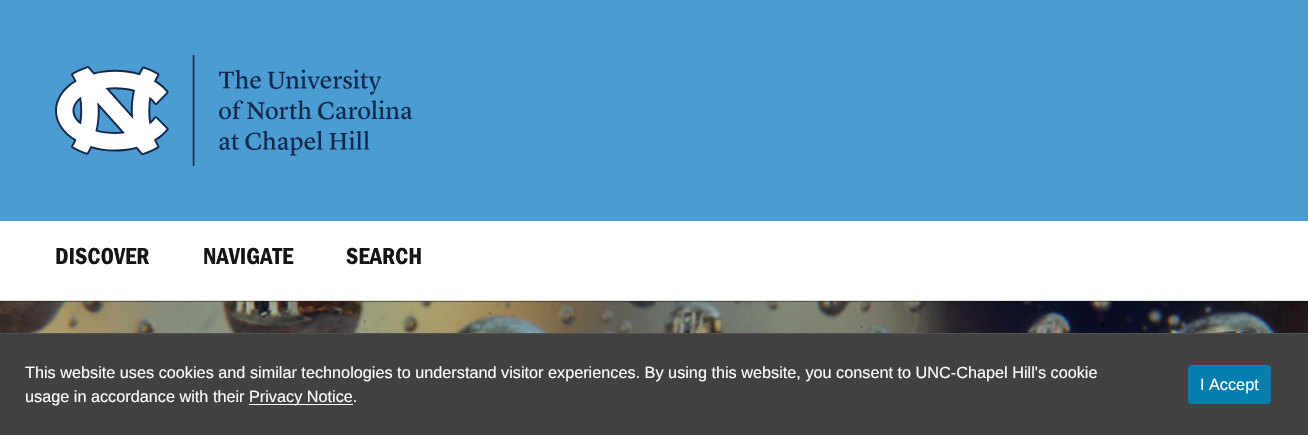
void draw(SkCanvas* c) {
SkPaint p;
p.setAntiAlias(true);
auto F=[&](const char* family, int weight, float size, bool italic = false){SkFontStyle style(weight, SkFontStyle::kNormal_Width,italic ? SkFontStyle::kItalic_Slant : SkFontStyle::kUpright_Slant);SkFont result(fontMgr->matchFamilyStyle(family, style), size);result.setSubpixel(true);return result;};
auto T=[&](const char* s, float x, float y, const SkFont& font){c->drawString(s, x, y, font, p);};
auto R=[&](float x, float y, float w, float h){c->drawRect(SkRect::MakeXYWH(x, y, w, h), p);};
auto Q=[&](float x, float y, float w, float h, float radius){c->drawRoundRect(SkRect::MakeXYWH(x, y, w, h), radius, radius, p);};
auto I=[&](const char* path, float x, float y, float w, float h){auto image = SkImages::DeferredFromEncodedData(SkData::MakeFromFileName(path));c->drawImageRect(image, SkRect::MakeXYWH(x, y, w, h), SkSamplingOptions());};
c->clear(0xff0f0f0f);
p.setColor(0xff4b9cd3);
R(0,0,1308,221);
I("1.png",55,55,358,111);
p.setColor(0xffffffff);
R(0,221,1308,79);
p.setColor(0xffe1e1e1);
R(0,300,1308,1);
auto f1 = F("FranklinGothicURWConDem",400,24);
p.setColor(0xff151515);
T("DISCOVER",55,264,f1);
T("NAVIGATE",203,264,f1);
T("SEARCH",346,264,f1);
I("2.png",0,301,1308,32);
p.setColor(0xff414141);
R(0,334,1308,101);
p.setColor(0xff515151);
R(0,333,1308,1);
auto f2 = F("Liberation Sans",400,16.25);
p.setColor(0xffffffff);
T("This website uses cookies and similar technologies to understand visitor experiences. By using this website, you consent to UNC-Chapel Hill's cookie",25,378,f2);
T("usage in accordance with their",25,402,f2);
R(249,404,104,1);
T("Privacy Notice.",249,402,f2);
p.setColor(0xff007fae);
Q(1188,365,83,39,4);
p.setColor(0xffffffff);
T("I Accept",1200,390,f2);
}
